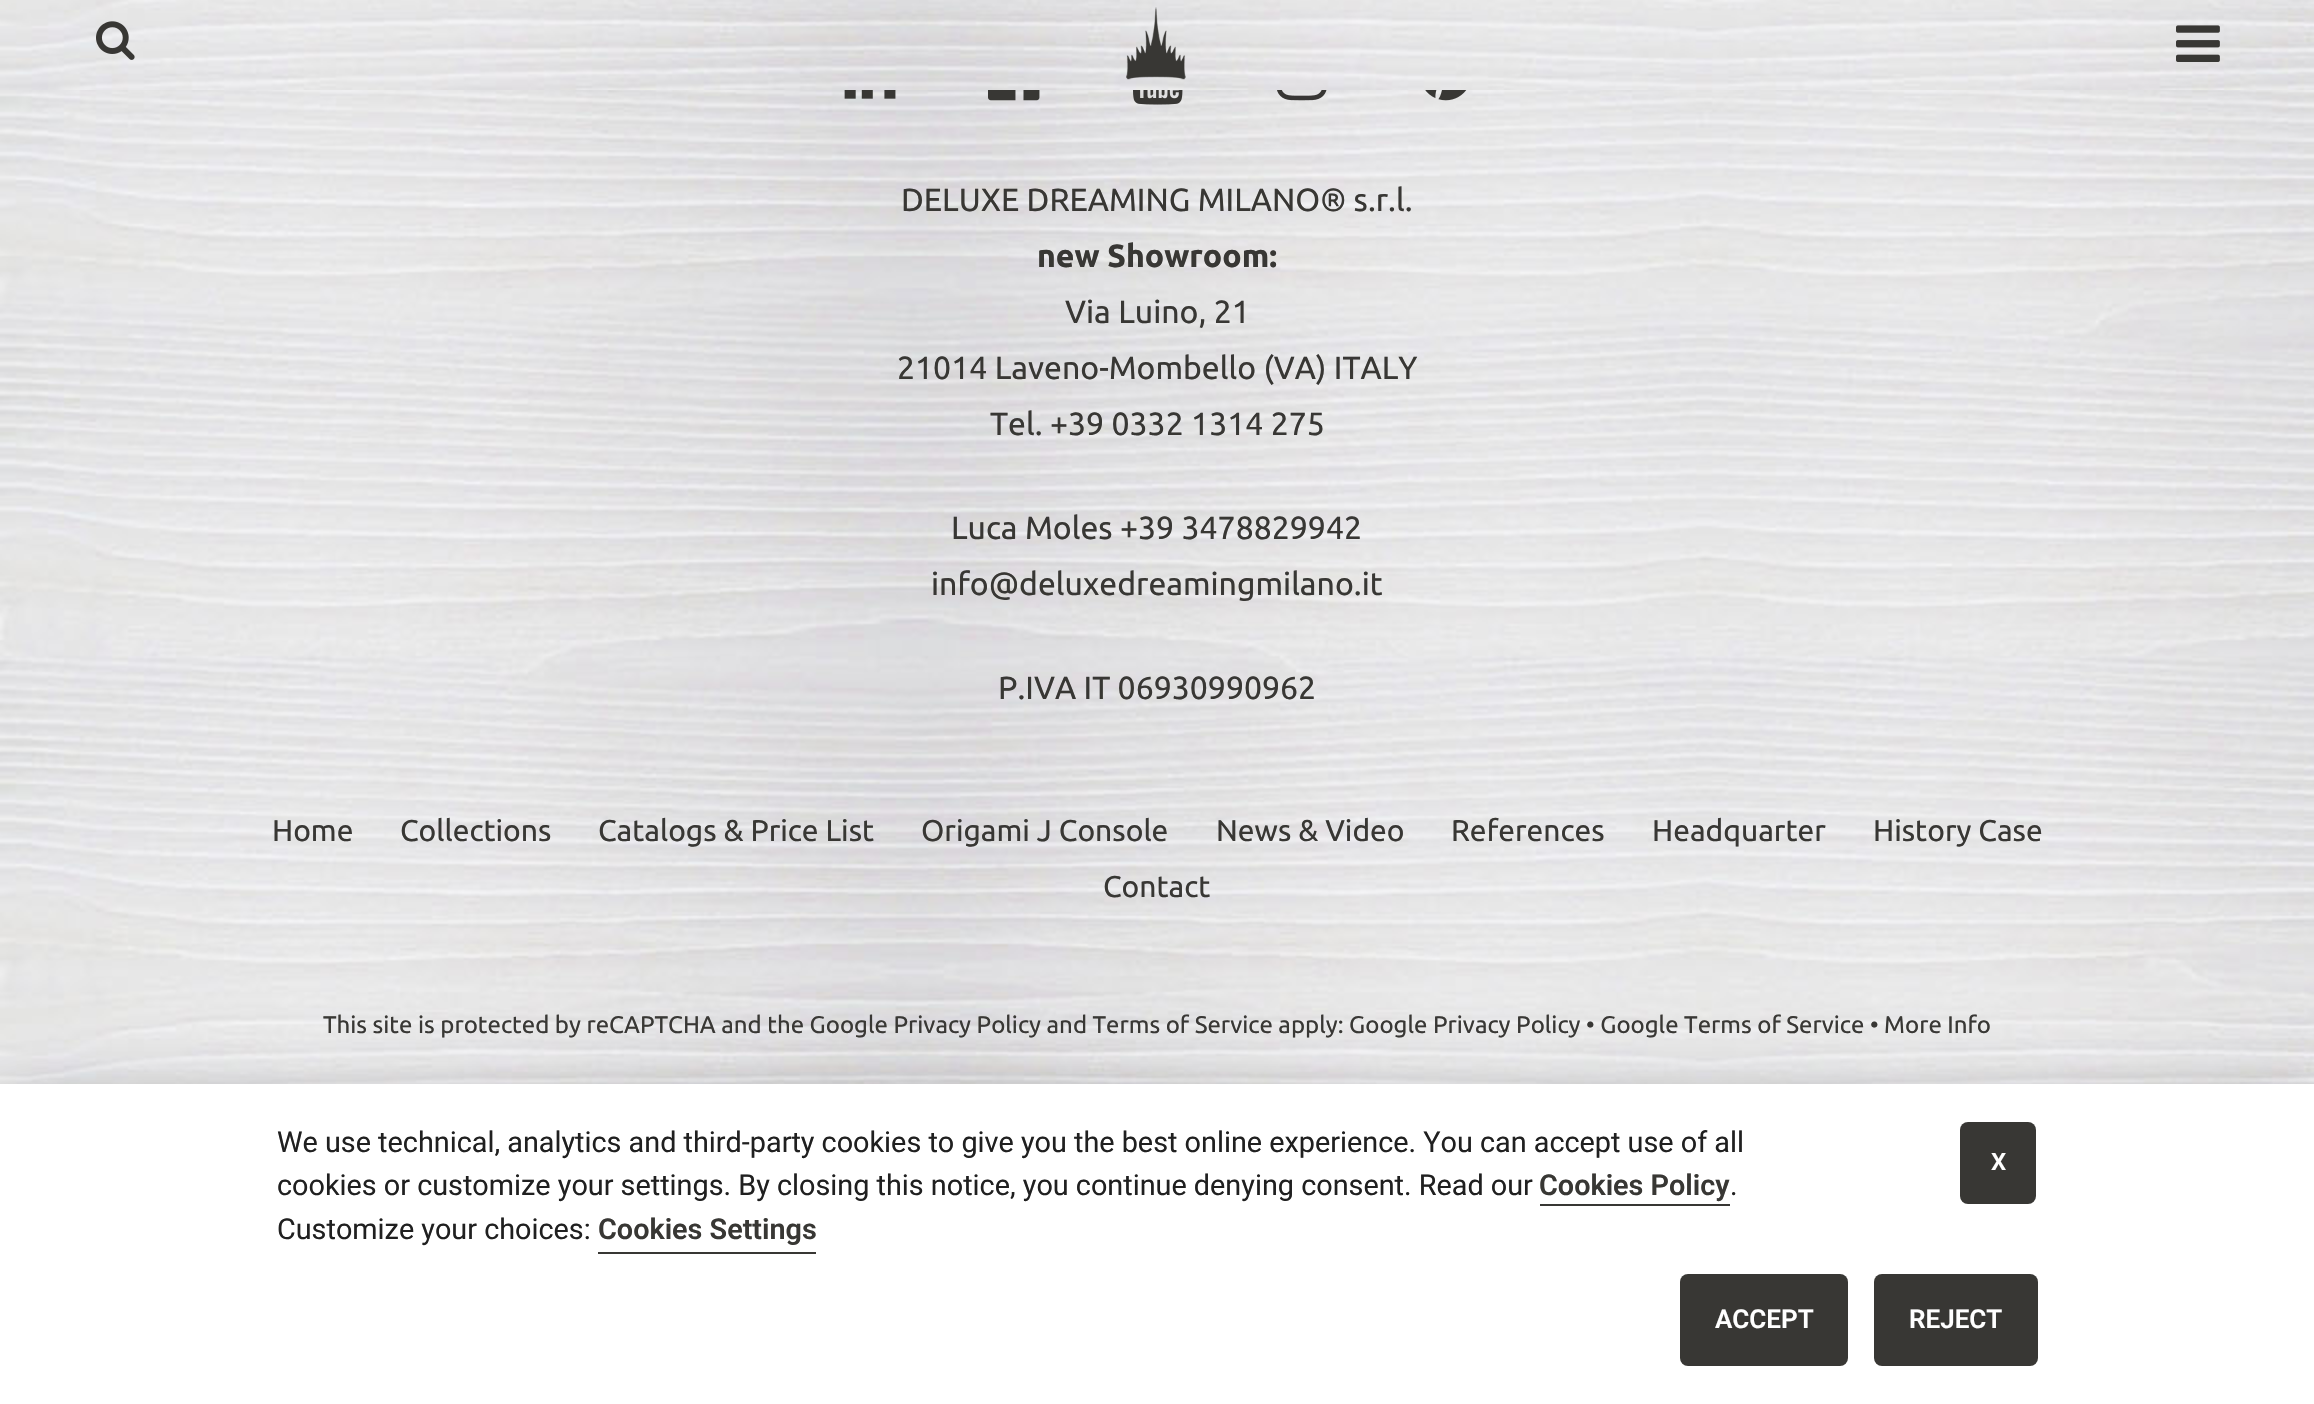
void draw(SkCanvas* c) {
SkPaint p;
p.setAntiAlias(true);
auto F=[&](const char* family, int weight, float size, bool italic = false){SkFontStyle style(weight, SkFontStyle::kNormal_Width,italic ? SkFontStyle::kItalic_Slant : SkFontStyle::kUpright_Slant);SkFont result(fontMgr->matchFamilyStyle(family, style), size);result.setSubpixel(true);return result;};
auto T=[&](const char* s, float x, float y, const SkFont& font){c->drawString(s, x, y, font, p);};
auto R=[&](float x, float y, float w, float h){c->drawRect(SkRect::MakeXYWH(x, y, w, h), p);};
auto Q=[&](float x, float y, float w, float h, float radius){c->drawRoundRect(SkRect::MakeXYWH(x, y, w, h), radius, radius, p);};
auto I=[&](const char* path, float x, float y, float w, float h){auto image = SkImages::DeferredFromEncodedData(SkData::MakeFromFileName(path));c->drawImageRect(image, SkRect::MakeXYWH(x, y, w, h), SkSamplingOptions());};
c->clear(0xffffffff);
I("1.png",0,0,2314,90);
I("2.png",96,21,39,39);
I("3.png",1126,7,60,73);
I("4.png",2176,25,44,37);
I("5.png",0,90,2314,994);
I("6.png",844,90,52,9);
I("7.png",988,90,52,11);
I("8.png",1133,90,50,15);
I("9.png",1277,90,50,11);
I("10.png",1425,90,42,11);
auto f1 = F("Ubuntu",400,32);
p.setColor(0xff383734);
T("DELUXE DREAMING MILANO® s.r.l.",901,211,f1);
auto f2 = F("Ubuntu",700,32);
T("new Showroom:",1037,267,f2);
T("Via Luino, 21",1065,323,f1);
T("21014 Laveno-Mombello (VA) ITALY",897,379,f1);
T("Tel. +39 0332 1314 275",990,435,f1);
T("Luca Moles +39 3478829942",951,539,f1);
T("info@deluxedreamingmilano.it",931,595,f1);
T("P.IVA IT 06930990962",998,699,f1);
auto f3 = F("Ubuntu",400,30);
T("Home",272,841,f3);
T("Collections",400,841,f3);
T("Catalogs & Price List",598,841,f3);
T("Origami J Console",921,841,f3);
T("News & Video",1216,841,f3);
T("References",1451,841,f3);
T("Headquarter",1652,841,f3);
T("History Case",1873,841,f3);
T("Contact",1103,897,f3);
auto f4 = F("Ubuntu",400,24);
T("This site is protected by reCAPTCHA and the Google Privacy Policy and Terms of Service apply: Google Privacy Policy • Google Terms of Service • More Info",323,1033,f4);
p.setColor(0x47020203);
p.setMaskFilter(SkMaskFilter::MakeBlur(kNormal_SkBlurStyle, 30));
c->drawRect(SkRect::MakeXYWH(0,1104,2314,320),p);
p.setMaskFilter(nullptr);
p.setColor(0xffffffff);
R(0,1084,2314,320);
auto f5 = F("Roboto",400,28.8);
p.setColor(0xff202020);
T("We use technical, analytics and third-party cookies to give you the best online experience. You can accept use of all",277,1152,f5);
T("cookies or customize your settings. By closing this notice, you continue denying consent. Read our",277,1195,f5);
auto f6 = F("Roboto",600,28.8);
p.setColor(0xff383734);
T("Cookies Policy",1539,1195,f6);
R(1540,1204,190,2);
p.setColor(0xff202020);
T(".",1730,1195,f5);
T("Customize your choices:",277,1239,f5);
p.setColor(0xff383734);
T("Cookies Settings",598,1239,f6);
R(598,1252,218,2);
Q(1960,1122,76,82,8);
auto f7 = F("Roboto",600,24);
p.setColor(0xffffffff);
T("X",1991,1170,f7);
p.setColor(0xff383734);
Q(1680,1274,168,92,8);
auto f8 = F("Roboto",600,26);
p.setColor(0xffffffff);
T("ACCEPT",1715,1328,f8);
p.setColor(0xff383734);
Q(1874,1274,164,92,8);
p.setColor(0xffffffff);
T("REJECT",1909,1328,f8);
}
